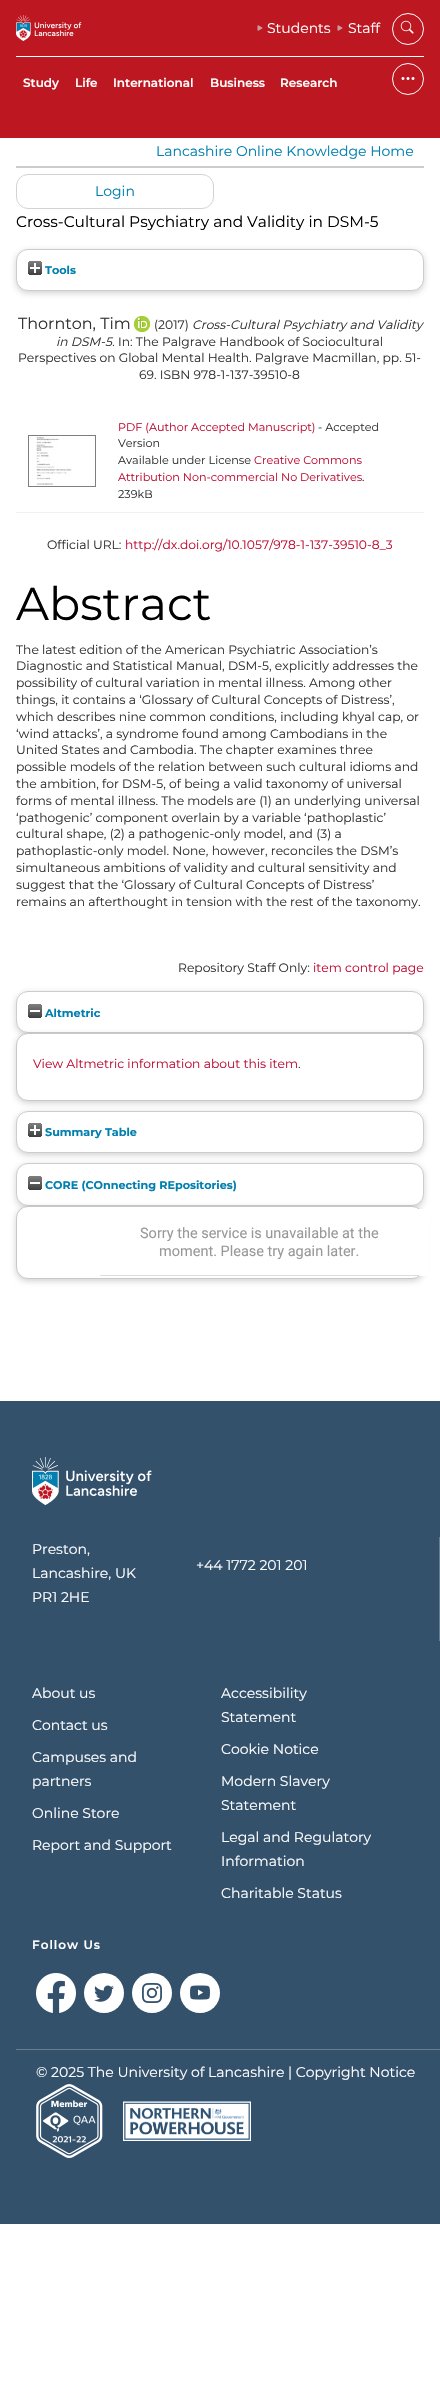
void draw(SkCanvas* c) {
SkPaint p;
p.setAntiAlias(true);
auto F=[&](const char* family, int weight, float size, bool italic = false){SkFontStyle style(weight, SkFontStyle::kNormal_Width,italic ? SkFontStyle::kItalic_Slant : SkFontStyle::kUpright_Slant);SkFont result(fontMgr->matchFamilyStyle(family, style), size);result.setSubpixel(true);return result;};
auto T=[&](const char* s, float x, float y, const SkFont& font){c->drawString(s, x, y, font, p);};
auto L=[&](const char* s, float x, float y, const SkFont& font, const SkPaint& ink, float letter, float word){std::vector<SkGlyphID> glyphs(font.countText(s, strlen(s), SkTextEncoding::kUTF8));std::vector<float> xs(glyphs.size());font.textToGlyphs(s, strlen(s), SkTextEncoding::kUTF8, glyphs);font.getXPos(glyphs, xs, x);float extra = 0;for (size_t i = 0; i < glyphs.size(); i++) {xs[i] += extra;extra += letter + word * (glyphs[i] == font.unicharToGlyph(' '));}c->drawTextBlob(SkTextBlob::MakeFromPosHGlyphs(glyphs, xs, y, font), 0, 0, ink);};
auto R=[&](float x, float y, float w, float h){c->drawRect(SkRect::MakeXYWH(x, y, w, h), p);};
auto I=[&](const char* path, float x, float y, float w, float h){auto image = SkImages::DeferredFromEncodedData(SkData::MakeFromFileName(path));c->drawImageRect(image, SkRect::MakeXYWH(x, y, w, h), SkSamplingOptions());};
c->clear(0xffffffff);
p.setColor(0xffbd1721);
R(0,0,440,138);
I("1.png",16,15,66,26);
I("2.png",257,25,6,6);
auto f1 = F("Montserrat",400,14);
p.setColor(0xffffffff);
T("Students",267,33,f1);
I("2.png",337,25,6,6);
T("Staff",348,33,f1);
R(16,56,408,1);
auto f2 = F("Montserrat",600,12);
T("Study",23,87,f2);
T("Life",75,87,f2);
T("International",113,87,f2);
T("Business",210,87,f2);
T("Research",280,87,f2);
p.setStroke(true);
p.setStrokeWidth(1);
c->drawCircle(408,29,15.5,p);
I("3.png",400,20,14,14);
c->drawCircle(408,79,15.5,p);
I("4.png",401,77,14,3);
p.setStroke(false);
p.setColor(0xff007fb0);
T("Lancashire Online Knowledge Home",156,156,f1);
p.setColor(0xffcccccc);
R(16,166,408,2);
p.setStroke(true);
p.setColor(0xffd3d3d3);
c->drawRoundRect(SkRect::MakeXYWH(16.5,174.5,197,34),11.5,11.5,p);
p.setStroke(false);
p.setColor(0xff007fb0);
T("Login",95,196,f1);
auto f3 = F("Montserrat",400,15.4);
p.setColor(0xff000000);
T("Cross-Cultural Psychiatry and Validity in DSM-5",16,227,f3);
p.setColor(0x4d646464);
p.setMaskFilter(SkMaskFilter::MakeBlur(kNormal_SkBlurStyle, 3));
c->drawRoundRect(SkRect::MakeXYWH(16,251,408,42),12,12,p);
p.setMaskFilter(nullptr);
p.setColor(0xffffffff);
c->drawRoundRect(SkRect::MakeXYWH(16.5,249.5,407,41),11.5,11.5,p);
p.setStroke(true);
p.setColor(0xffcccccc);
c->drawRoundRect(SkRect::MakeXYWH(16.5,249.5,407,41),11.5,11.5,p);
I("5.png",28,261,14,14);
auto f4 = F("Montserrat",700,11.2);
p.setStroke(false);
p.setColor(0xff007fb0);
T("Tools",45,274,f4);
auto f5 = F("Montserrat",400,16);
p.setColor(0xff333333);
T("Thornton, Tim",18,329,f5);
I("6.png",134,316,16,16);
auto f6 = F("Montserrat",400,12.3);
T("(2017)",154,329,f6);
auto f7 = F("Montserrat",400,12.3,true);
T("Cross-Cultural Psychiatry and Validity",192,329,f7);
T("in DSM-5.",56,346,f7);
T("In: The Palgrave Handbook of Sociocultural",118,346,f6);
T("Perspectives on Global Mental Health. Palgrave Macmillan, pp. 51-",18,362,f6);
T("69. ISBN 978-1-137-39510-8",139,379,f6);
p.setColor(0xfff0f0f0);
R(16,512,408,1);
I("7.png",28,435,68,52);
auto f8 = F("Montserrat",400,11.2);
p.setColor(0xffbe0f34);
T("PDF (Author Accepted Manuscript)",118,431,f8);
p.setColor(0xff333333);
T("- Accepted",318,431,f8);
T("Version",118,447,f8);
T("Available under License",118,464,f8);
p.setColor(0xffbe0f34);
T("Creative Commons",254,464,f8);
T("Attribution Non-commercial No Derivatives",118,481,f8);
p.setColor(0xff333333);
T(".",362,481,f8);
T("239kB",118,498,f8);
T("Official URL:",47,549,f6);
p.setColor(0xffbe0f34);
T("http://dx.doi.org/10.1057/978-1-137-39510-8_3",125,549,f6);
auto f9 = F("Montserrat",400,46);
p.setColor(0xff000000);
T("Abstract",16,620,f9);
p.setColor(0xff333333);
T("The latest edition of the American Psychiatric Association’s",16,654,f6);
T("Diagnostic and Statistical Manual, DSM-5, explicitly addresses the",16,670,f6);
T("possibility of cultural variation in mental illness. Among other",16,687,f6);
T("things, it contains a ‘Glossary of Cultural Concepts of Distress’,",16,704,f6);
T("which describes nine common conditions, including khyal cap, or",16,721,f6);
T("‘wind attacks’, a syndrome found among Cambodians in the",16,738,f6);
T("United States and Cambodia. The chapter examines three",16,754,f6);
T("possible models of the relation between such cultural idioms and",16,771,f6);
T("the ambition, for DSM-5, of being a valid taxonomy of universal",16,788,f6);
T("forms of mental illness. The models are (1) an underlying universal",16,805,f6);
T("‘pathogenic’ component overlain by a variable ‘pathoplastic’",16,822,f6);
T("cultural shape, (2) a pathogenic-only model, and (3) a",16,838,f6);
T("pathoplastic-only model. None, however, reconciles the DSM’s",16,855,f6);
T("simultaneous ambitions of validity and cultural sensitivity and",16,872,f6);
T("suggest that the ‘Glossary of Cultural Concepts of Distress’",16,889,f6);
T("remains an afterthought in tension with the rest of the taxonomy.",16,906,f6);
T("Repository Staff Only:",178,972,f6);
p.setColor(0xffbe0f34);
T("item control page",313,972,f6);
p.setColor(0x4d646464);
p.setMaskFilter(SkMaskFilter::MakeBlur(kNormal_SkBlurStyle, 3));
c->drawRoundRect(SkRect::MakeXYWH(16,993,408,42),12,12,p);
p.setMaskFilter(nullptr);
p.setColor(0xffffffff);
c->drawRoundRect(SkRect::MakeXYWH(16.5,991.5,407,41),11.5,11.5,p);
p.setStroke(true);
p.setColor(0xffcccccc);
c->drawRoundRect(SkRect::MakeXYWH(16.5,991.5,407,41),11.5,11.5,p);
I("8.png",28,1004,14,14);
p.setStroke(false);
p.setColor(0xff007fb0);
T("Altmetric",45,1017,f4);
p.setColor(0x4d646464);
p.setMaskFilter(SkMaskFilter::MakeBlur(kNormal_SkBlurStyle, 3));
c->drawRoundRect(SkRect::MakeXYWH(16,1035,408,68),12,12,p);
p.setMaskFilter(nullptr);
p.setColor(0xffffffff);
c->drawRoundRect(SkRect::MakeXYWH(16.5,1033.5,407,67),11.5,11.5,p);
p.setStroke(true);
p.setColor(0xffc8c8c8);
c->drawRoundRect(SkRect::MakeXYWH(16.5,1033.5,407,67),11.5,11.5,p);
p.setStroke(false);
p.setColor(0xffbe0f34);
T("View Altmetric information about this item",33,1068,f6);
p.setColor(0xff333333);
T(".",298,1068,f6);
p.setColor(0x4d646464);
p.setMaskFilter(SkMaskFilter::MakeBlur(kNormal_SkBlurStyle, 3));
c->drawRoundRect(SkRect::MakeXYWH(16,1113,408,42),12,12,p);
p.setMaskFilter(nullptr);
p.setColor(0xffffffff);
c->drawRoundRect(SkRect::MakeXYWH(16.5,1111.5,407,41),11.5,11.5,p);
p.setStroke(true);
p.setColor(0xffcccccc);
c->drawRoundRect(SkRect::MakeXYWH(16.5,1111.5,407,41),11.5,11.5,p);
I("5.png",28,1123,14,14);
p.setStroke(false);
p.setColor(0xff007fb0);
T("Summary Table",45,1136,f4);
p.setColor(0x4d646464);
p.setMaskFilter(SkMaskFilter::MakeBlur(kNormal_SkBlurStyle, 3));
c->drawRoundRect(SkRect::MakeXYWH(16,1165,408,43),12,12,p);
p.setMaskFilter(nullptr);
p.setColor(0xffffffff);
c->drawRoundRect(SkRect::MakeXYWH(16.5,1163.5,407,42),11.5,11.5,p);
p.setStroke(true);
p.setColor(0xffcccccc);
c->drawRoundRect(SkRect::MakeXYWH(16.5,1163.5,407,42),11.5,11.5,p);
I("8.png",28,1176,14,14);
p.setStroke(false);
p.setColor(0xff007fb0);
T("CORE (COnnecting REpositories)",45,1189,f4);
p.setColor(0x4d646464);
p.setMaskFilter(SkMaskFilter::MakeBlur(kNormal_SkBlurStyle, 3));
c->drawRoundRect(SkRect::MakeXYWH(16,1208,408,73),12,12,p);
p.setMaskFilter(nullptr);
p.setColor(0xffffffff);
c->drawRoundRect(SkRect::MakeXYWH(16.5,1206.5,407,72),11.5,11.5,p);
p.setStroke(true);
p.setColor(0xffc8c8c8);
c->drawRoundRect(SkRect::MakeXYWH(16.5,1206.5,407,72),11.5,11.5,p);
p.setStroke(false);
p.setColor(0xffffffff);
R(418,1209,11,67);
p.setColor(0xffdddddd);
R(100,1275,319,1);
auto f10 = F("Roboto",400,14.5);
p.setColor(0xff999999);
T("Sorry the service is unavailable at the",140,1238,f10);
T("moment. Please try again later.",159,1256,f10);
p.setColor(0xff34516c);
R(0,1401,440,823);
I("9.png",32,1457,120,48);
p.setColor(0xff677d91);
R(16,2049,424,1);
R(439,1537,1,104);
p.setColor(0xffffffff);
T("Preston,",32,1554,f1);
T("Lancashire, UK",32,1578,f1);
T("PR1 2HE",32,1602,f1);
T("+44 1772 201 201",196,1570,f1);
T("About us",32,1698,f1);
T("Accessibility",221,1698,f1);
T("Statement",221,1722,f1);
T("Contact us",32,1730,f1);
T("Cookie Notice",221,1754,f1);
T("Campuses and",32,1762,f1);
T("partners",32,1786,f1);
T("Modern Slavery",221,1786,f1);
T("Statement",221,1810,f1);
T("Online Store",32,1818,f1);
T("Report and Support",32,1850,f1);
T("Legal and Regulatory",221,1842,f1);
T("Information",221,1866,f1);
T("Charitable Status",221,1898,f1);
L("Follow Us",32,1949,f2,p,1,0);
I("10.png",36,1973,40,40);
c->drawCircle(104,1993,20,p);
I("11.png",94,1985,20,17);
c->drawCircle(152,1993,20,p);
I("12.png",142,1983,20,20);
c->drawCircle(200,1993,20,p);
I("13.png",190,1985,20,15);
T("© 2025 The University of Lancashire | Copyright Notice",36,2077,f1);
I("14.png",36,2084,67,74);
I("15.png",123,2101,128,40);
}
